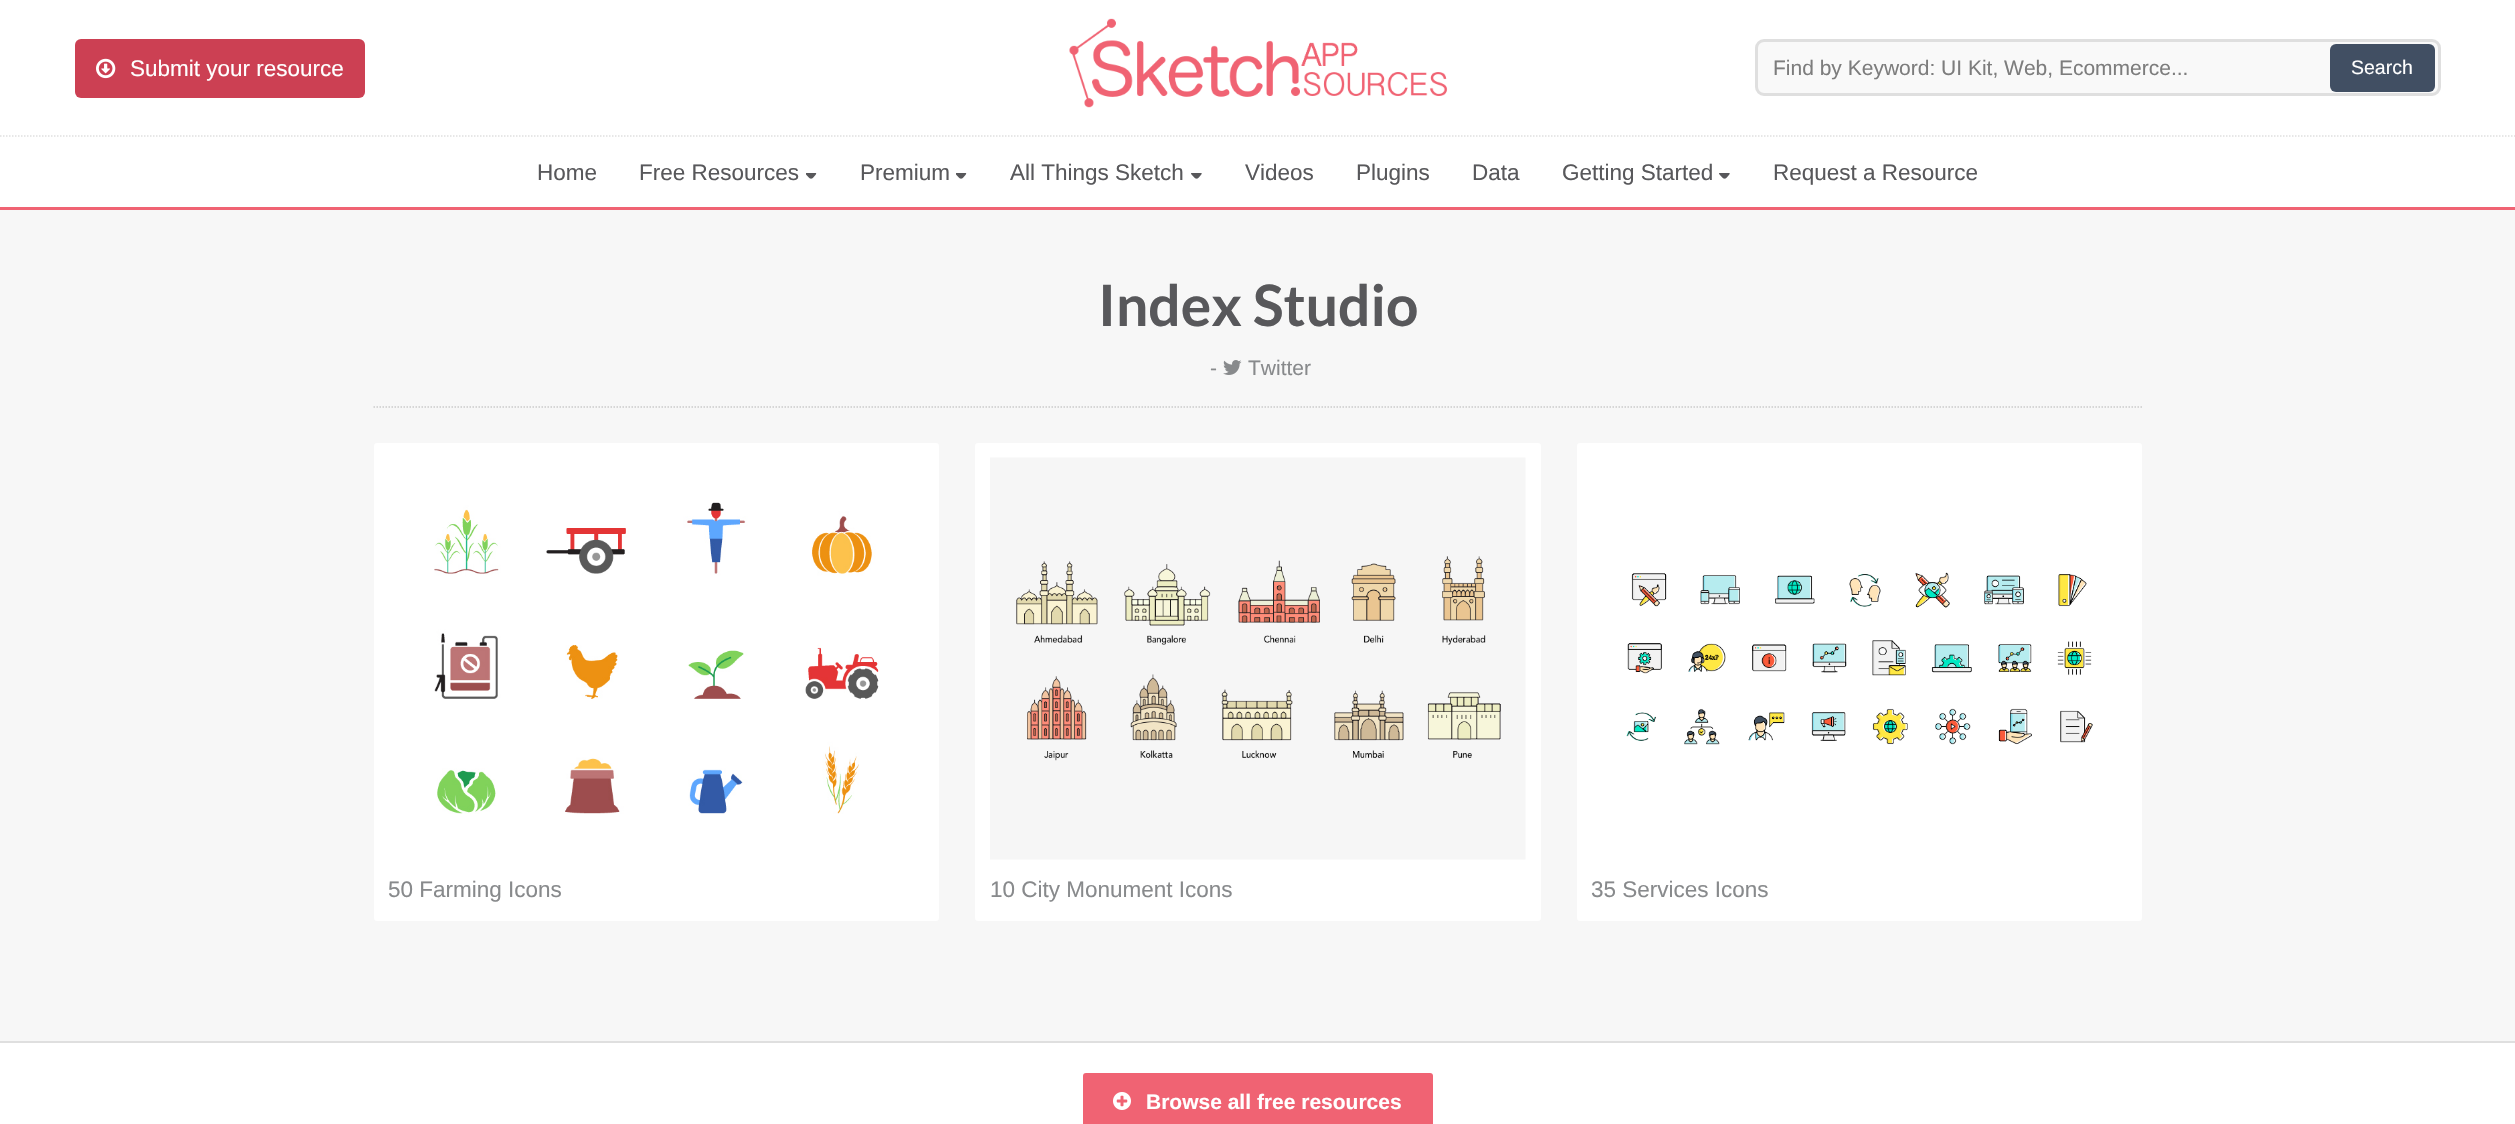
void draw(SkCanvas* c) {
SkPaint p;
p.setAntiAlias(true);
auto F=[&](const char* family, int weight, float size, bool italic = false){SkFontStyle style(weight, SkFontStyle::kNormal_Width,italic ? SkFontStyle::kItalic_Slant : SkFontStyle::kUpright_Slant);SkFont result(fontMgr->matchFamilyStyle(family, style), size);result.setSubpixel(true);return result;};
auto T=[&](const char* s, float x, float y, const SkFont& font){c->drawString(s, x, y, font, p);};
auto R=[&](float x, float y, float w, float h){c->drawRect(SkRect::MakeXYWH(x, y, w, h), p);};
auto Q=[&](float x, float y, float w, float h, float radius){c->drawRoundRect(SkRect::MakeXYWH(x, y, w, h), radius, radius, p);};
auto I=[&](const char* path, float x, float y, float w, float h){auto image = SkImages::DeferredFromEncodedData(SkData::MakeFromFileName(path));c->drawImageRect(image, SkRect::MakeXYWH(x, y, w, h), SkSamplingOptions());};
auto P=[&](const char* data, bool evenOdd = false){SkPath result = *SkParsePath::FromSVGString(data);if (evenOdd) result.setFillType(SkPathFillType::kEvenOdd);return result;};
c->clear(0xfff7f7f7);
p.setColor(0xffffffff);
R(0,0,2515,207);
p.setColor(0xffcc4053);
Q(75,39,290,59,6);
I("1.png",96,58,20,21);
auto f1 = F("Liberation Sans",400,22.5);
p.setColor(0xffffffff);
T("Submit your resource",130,76,f1);
I("2.png",1069,18,379,90);
p.setColor(0xfff9f9f9);
c->drawRoundRect(SkRect::MakeXYWH(1756.5,40.5,683,54),7.5,7.5,p);
p.setStroke(true);
p.setStrokeWidth(3);
p.setColor(0xffdfdfdf);
c->drawRoundRect(SkRect::MakeXYWH(1756.5,40.5,683,54),7.5,7.5,p);
auto f2 = F("Liberation Sans",400,21);
p.setStroke(false);
p.setColor(0xff7d7d7d);
T("Find by Keyword: UI Kit, Web, Ecommerce...",1773,75,f2);
p.setColor(0xff414f63);
Q(2330,44,105,48,6);
auto f3 = F("Liberation Sans",400,19.5);
p.setColor(0xffffffff);
T("Search",2351,74,f3);
p.setStroke(true);
p.setStrokeWidth(1.5);
p.setColor(0xffdfdfdf);
p.setPathEffect(SkDashPathEffect::Make({{1.5f,1.5f}}, 0));
c->drawPath(P("M0 136h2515.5"),p);
p.setPathEffect(nullptr);
p.setStroke(false);
p.setColor(0xfff06373);
R(0,207,2515,3);
p.setColor(0xff58585b);
T("Home",537,180,f1);
T("Free Resources",639,180,f1);
I("3.png",806,173,11,6);
T("Premium",860,180,f1);
I("3.png",956,173,11,6);
T("All Things Sketch",1010,180,f1);
I("4.png",1191,173,11,6);
T("Videos",1245,180,f1);
T("Plugins",1356,180,f1);
T("Data",1472,180,f1);
T("Getting Started",1562,180,f1);
I("4.png",1719,173,11,6);
T("Request a Resource",1773,180,f1);
p.setStroke(true);
p.setColor(0xffcccccc);
p.setPathEffect(SkDashPathEffect::Make({{1.5f,1.5f}}, 0));
c->drawPath(P("M373.5 407h1770"),p);
p.setPathEffect(nullptr);
auto f4 = F("Lato",700,57);
p.setStroke(false);
p.setColor(0xff58585b);
T("Index Studio",1098,326,f4);
p.setColor(0xff888a8c);
T("-",1210,375,f2);
I("5.png",1223,360,19,15);
T("Twitter",1248,375,f2);
p.setColor(0xffffffff);
Q(374,443,565,478,3);
I("6.png",434,502,445,312);
p.setColor(0xff888a8c);
T("50 Farming Icons",388,897,f1);
p.setColor(0xffffffff);
Q(975,443,566,478,3);
I("7.png",990,457,536,403);
p.setColor(0xff888a8c);
T("10 City Monument Icons",990,897,f1);
p.setColor(0xffffffff);
Q(1577,443,565,478,3);
I("8.png",1626,572,467,173);
p.setColor(0xff888a8c);
T("35 Services Icons",1591,897,f1);
p.setColor(0xffffffff);
R(0,1043,2515,81);
p.setColor(0xffdfdfdf);
R(0,1041,2515,2);
p.setColor(0xfff06373);
Q(1083,1073,350,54,3);
I("9.png",1113,1092,18,18);
auto f5 = F("Liberation Sans",700,21);
p.setColor(0xffffffff);
T("Browse all free resources",1146,1109,f5);
}
